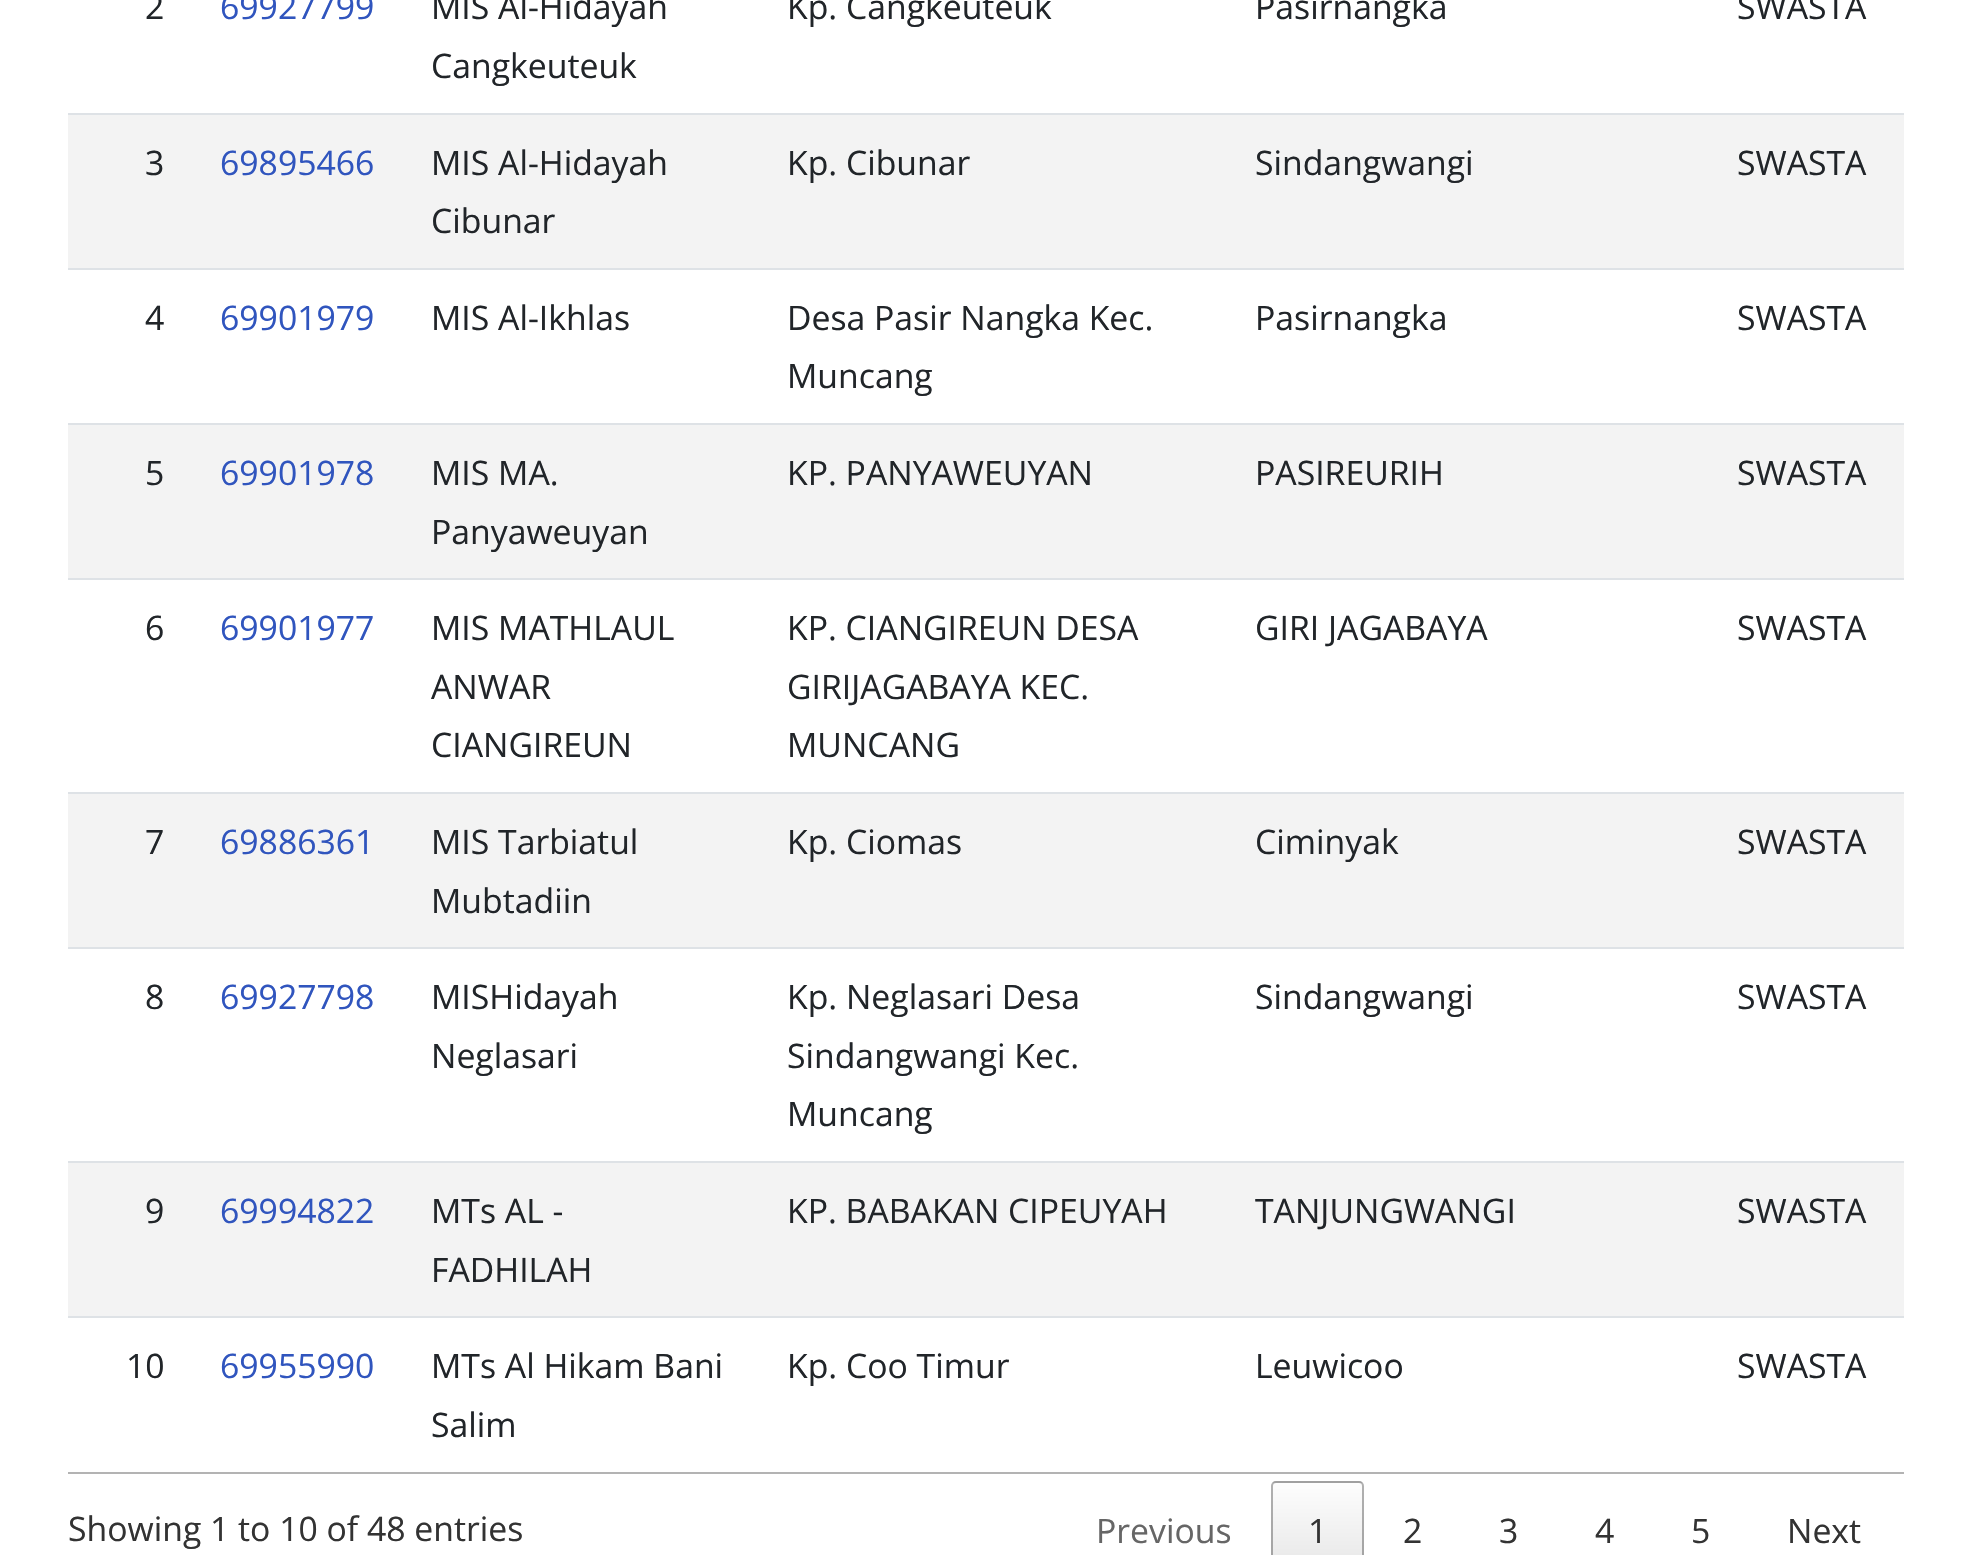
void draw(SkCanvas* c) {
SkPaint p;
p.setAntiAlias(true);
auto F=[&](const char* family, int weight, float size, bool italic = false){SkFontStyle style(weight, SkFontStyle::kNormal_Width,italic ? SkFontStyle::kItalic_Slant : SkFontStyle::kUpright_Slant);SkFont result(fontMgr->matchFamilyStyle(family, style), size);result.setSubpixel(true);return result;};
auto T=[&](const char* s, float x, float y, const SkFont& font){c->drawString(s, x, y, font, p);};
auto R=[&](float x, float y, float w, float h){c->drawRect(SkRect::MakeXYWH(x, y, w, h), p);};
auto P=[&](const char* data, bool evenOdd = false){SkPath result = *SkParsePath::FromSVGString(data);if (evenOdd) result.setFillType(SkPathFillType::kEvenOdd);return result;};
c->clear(0xffffffff);
p.setColor(0xffb3b3b3);
R(68,1472,1836,2);
auto f1 = F("Open Sans",400,33.75);
p.setColor(0xff212529);
T("2",145,19,f1);
p.setColor(0xff3055be);
T("69927799",220,19,f1);
p.setColor(0xff212529);
T("MIS Al-Hidayah",431,19,f1);
T("Cangkeuteuk",431,78,f1);
T("Kp. Cangkeuteuk",787,19,f1);
T("Pasirnangka",1255,19,f1);
T("SWASTA",1737,19,f1);
p.setColor(0xfff3f3f3);
R(68,115,1836,153);
p.setColor(0xffdee2e6);
R(68,113,1836,2);
p.setColor(0xff212529);
T("3",145,175,f1);
p.setColor(0xff3055be);
T("69895466",220,175,f1);
p.setColor(0xff212529);
T("MIS Al-Hidayah",431,175,f1);
T("Cibunar",431,233,f1);
T("Kp. Cibunar",787,175,f1);
T("Sindangwangi",1255,175,f1);
T("SWASTA",1737,175,f1);
p.setColor(0xffdee2e6);
R(68,268,1836,2);
p.setColor(0xff212529);
T("4",145,330,f1);
p.setColor(0xff3055be);
T("69901979",220,330,f1);
p.setColor(0xff212529);
T("MIS Al-Ikhlas",431,330,f1);
T("Desa Pasir Nangka Kec.",787,330,f1);
T("Muncang",787,388,f1);
T("Pasirnangka",1255,330,f1);
T("SWASTA",1737,330,f1);
p.setColor(0xfff3f3f3);
R(68,425,1836,153);
p.setColor(0xffdee2e6);
R(68,423,1836,2);
p.setColor(0xff212529);
T("5",145,485,f1);
p.setColor(0xff3055be);
T("69901978",220,485,f1);
p.setColor(0xff212529);
T("MIS MA.",431,485,f1);
T("Panyaweuyan",431,544,f1);
T("KP. PANYAWEUYAN",787,485,f1);
T("PASIREURIH",1255,485,f1);
T("SWASTA",1737,485,f1);
p.setColor(0xffdee2e6);
R(68,578,1836,2);
p.setColor(0xff212529);
T("6",145,640,f1);
p.setColor(0xff3055be);
T("69901977",220,640,f1);
p.setColor(0xff212529);
T("MIS MATHLAUL",431,640,f1);
T("ANWAR",431,699,f1);
T("CIANGIREUN",431,757,f1);
T("KP. CIANGIREUN DESA",787,640,f1);
T("GIRIJAGABAYA KEC.",787,699,f1);
T("MUNCANG",787,757,f1);
T("GIRI JAGABAYA",1255,640,f1);
T("SWASTA",1737,640,f1);
p.setColor(0xfff3f3f3);
R(68,794,1836,153);
p.setColor(0xffdee2e6);
R(68,792,1836,2);
p.setColor(0xff212529);
T("7",145,854,f1);
p.setColor(0xff3055be);
T("69886361",220,854,f1);
p.setColor(0xff212529);
T("MIS Tarbiatul",431,854,f1);
T("Mubtadiin",431,913,f1);
T("Kp. Ciomas",787,854,f1);
T("Ciminyak",1255,854,f1);
T("SWASTA",1737,854,f1);
p.setColor(0xffdee2e6);
R(68,947,1836,2);
p.setColor(0xff212529);
T("8",145,1009,f1);
p.setColor(0xff3055be);
T("69927798",220,1009,f1);
p.setColor(0xff212529);
T("MISHidayah",431,1009,f1);
T("Neglasari",431,1068,f1);
T("Kp. Neglasari Desa",787,1009,f1);
T("Sindangwangi Kec.",787,1068,f1);
T("Muncang",787,1126,f1);
T("Sindangwangi",1255,1009,f1);
T("SWASTA",1737,1009,f1);
p.setColor(0xfff3f3f3);
R(68,1163,1836,153);
p.setColor(0xffdee2e6);
R(68,1161,1836,2);
p.setColor(0xff212529);
T("9",145,1223,f1);
p.setColor(0xff3055be);
T("69994822",220,1223,f1);
p.setColor(0xff212529);
T("MTs AL -",431,1223,f1);
T("FADHILAH",431,1282,f1);
T("KP. BABAKAN CIPEUYAH",787,1223,f1);
T("TANJUNGWANGI",1255,1223,f1);
T("SWASTA",1737,1223,f1);
p.setColor(0xffdee2e6);
R(68,1316,1836,2);
p.setColor(0xff212529);
T("10",126,1378,f1);
p.setColor(0xff3055be);
T("69955990",220,1378,f1);
p.setColor(0xff212529);
T("MTs Al Hikam Bani",431,1378,f1);
T("Salim",431,1437,f1);
T("Kp. Coo Timur",787,1378,f1);
T("Leuwicoo",1255,1378,f1);
T("SWASTA",1737,1378,f1);
p.setColor(0xff333333);
T("Showing 1 to 10 of 48 entries",68,1541,f1);
p.setColor(0xff666666);
T("Previous",1096,1543,f1);
c->save();
c->clipPath(P("M1276 1481h83c3 0 5 2 5 5v86c0 3-2 5-5 5h-83c-3 0-5-2-5-5v-86c0-3 2-5 5-5z"),true);
{
const SkColor colors[] = {0xfffdfdfd,0xffe6e6e6};
const float stops[] = {0,1};
const SkPoint ends[] = {{1317,1391}, {1317,1483}};
p.setShader(SkGradientShader::MakeLinear(ends, colors, stops, 2, SkTileMode::kClamp));
p.setAlpha(255);
}
R(1271,1481,93,2);
{
const SkColor colors[] = {0xfffdfdfd,0xffe6e6e6};
const float stops[] = {0,1};
const SkPoint ends[] = {{1317,1483}, {1317,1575}};
p.setShader(SkGradientShader::MakeLinear(ends, colors, stops, 2, SkTileMode::kClamp));
p.setAlpha(255);
}
R(1271,1483,93,72);
c->restore();
p.setStroke(true);
p.setStrokeWidth(2);
p.setShader(nullptr);
p.setColor(0x4d000000);
c->drawRoundRect(SkRect::MakeXYWH(1272,1482,91,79),4,4,p);
p.setStroke(false);
p.setColor(0xff333333);
T("1",1308,1543,f1);
T("2",1403,1543,f1);
T("3",1499,1543,f1);
T("4",1595,1543,f1);
T("5",1691,1543,f1);
T("Next",1787,1543,f1);
}
